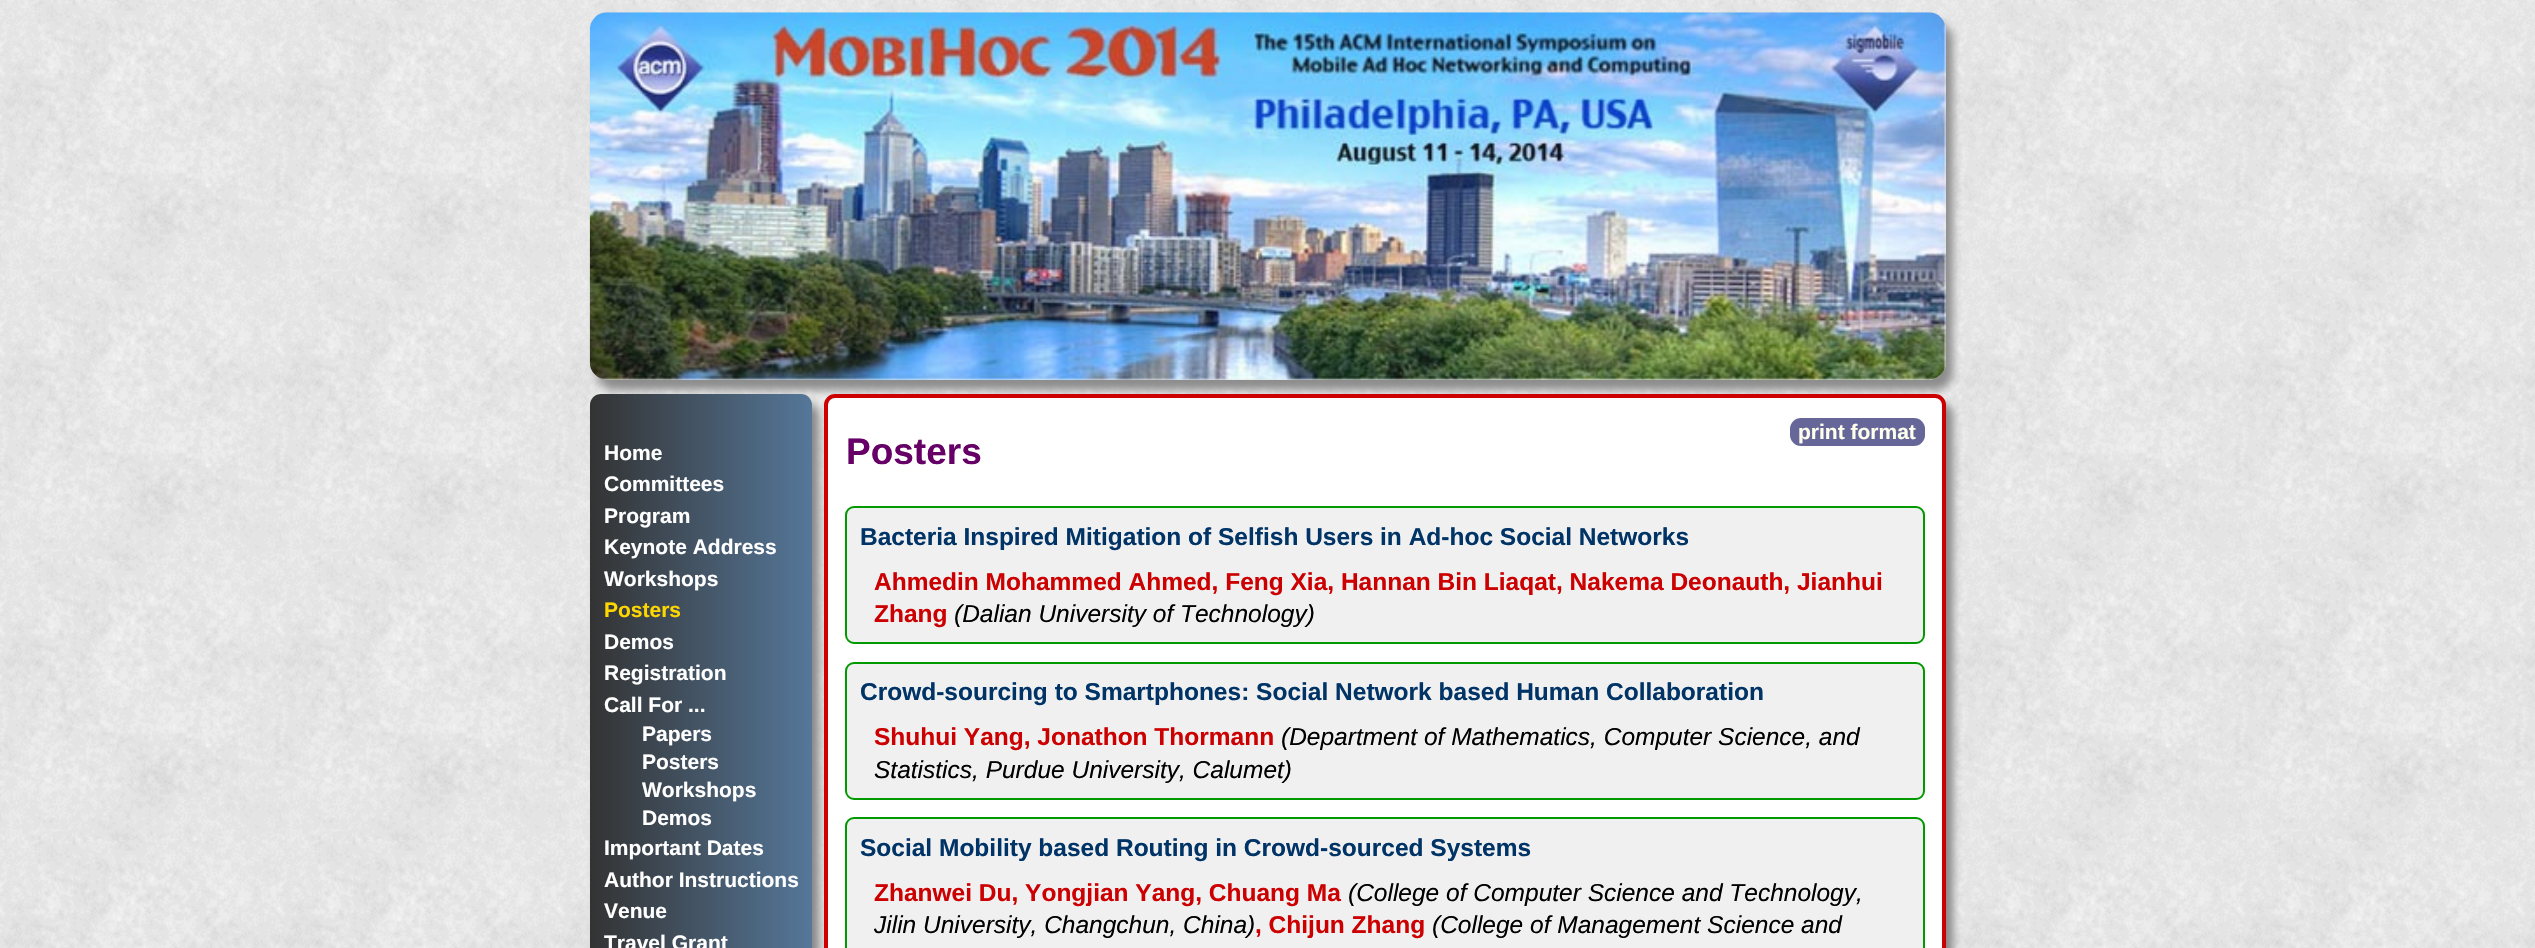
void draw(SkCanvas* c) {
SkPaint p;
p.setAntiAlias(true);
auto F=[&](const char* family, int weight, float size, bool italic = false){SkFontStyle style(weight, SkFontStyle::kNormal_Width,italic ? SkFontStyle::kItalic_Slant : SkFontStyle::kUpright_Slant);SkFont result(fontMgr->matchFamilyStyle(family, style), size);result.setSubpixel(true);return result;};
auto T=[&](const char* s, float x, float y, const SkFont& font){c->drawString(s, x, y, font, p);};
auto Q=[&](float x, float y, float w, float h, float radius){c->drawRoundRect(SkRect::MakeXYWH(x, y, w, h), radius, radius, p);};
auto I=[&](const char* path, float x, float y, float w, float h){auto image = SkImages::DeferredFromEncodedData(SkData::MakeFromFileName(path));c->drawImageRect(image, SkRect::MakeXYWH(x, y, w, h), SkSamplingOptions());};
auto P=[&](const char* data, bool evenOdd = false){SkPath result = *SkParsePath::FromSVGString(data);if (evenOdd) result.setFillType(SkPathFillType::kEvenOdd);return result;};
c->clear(0xffffffff);
I("1.png",0,0,2535,948);
c->save();
c->clipPath(P("M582 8h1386v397h-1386zm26 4h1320c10 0 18 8 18 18v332c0 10-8 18-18 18h-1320c-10 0-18-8-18-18v-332c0-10 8-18 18-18z",true),true);
p.setColor(0xf2888888);
p.setMaskFilter(SkMaskFilter::MakeBlur(kNormal_SkBlurStyle, 4.5));
c->drawRoundRect(SkRect::MakeXYWH(597,23,1356,367),18,18,p);
p.setMaskFilter(nullptr);
c->restore();
I("2.png",589,12,1357,368);
p.setColor(0xff888888);
p.setMaskFilter(SkMaskFilter::MakeBlur(kNormal_SkBlurStyle, 4.5));
c->drawRoundRect(SkRect::MakeXYWH(597,404,222,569),11,11,p);
p.setMaskFilter(nullptr);
{
const SkColor colors[] = {0xff333333,0xff557799};
const float stops[] = {0,1};
const SkPoint ends[] = {{590,731}, {812,731}};
p.setShader(SkGradientShader::MakeLinear(ends, colors, stops, 2, SkTileMode::kClamp));
p.setAlpha(255);
}
Q(590,394,222,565,11);
auto f1 = F("Liberation Sans",700,21);
p.setShader(nullptr);
p.setColor(0xffffffff);
T("Home",604,460,f1);
T("Committees",604,491,f1);
T("Program",604,523,f1);
T("Keynote Address",604,554,f1);
T("Workshops",604,586,f1);
p.setColor(0xffffd700);
T("Posters",604,617,f1);
p.setColor(0xffffffff);
T("Demos",604,649,f1);
T("Registration",604,680,f1);
T("Call For ...",604,712,f1);
T("Papers",642,741,f1);
T("Posters",642,769,f1);
T("Workshops",642,797,f1);
T("Demos",642,825,f1);
T("Important Dates",604,855,f1);
T("Author Instructions",604,887,f1);
T("Venue",604,918,f1);
T("Travel Grant",604,950,f1);
p.setColor(0xff888888);
p.setMaskFilter(SkMaskFilter::MakeBlur(kNormal_SkBlurStyle, 4.5));
c->drawRoundRect(SkRect::MakeXYWH(831,404,1122,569),11,11,p);
p.setMaskFilter(nullptr);
p.setColor(0xffffffff);
c->drawRoundRect(SkRect::MakeXYWH(826,396,1118,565),9,9,p);
p.setStroke(true);
p.setStrokeWidth(4);
p.setColor(0xffcc0000);
c->drawRoundRect(SkRect::MakeXYWH(826,396,1118,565),9,9,p);
p.setStroke(false);
p.setColor(0xff666699);
Q(1790,418,135,28,11);
p.setColor(0xffffffee);
T("print format",1798,439,f1);
auto f2 = F("Liberation Sans",700,37);
p.setColor(0xff660066);
T("Posters",846,464,f2);
p.setColor(0xfff0f0f0);
c->drawRoundRect(SkRect::MakeXYWH(846,507,1078,136),8,8,p);
p.setStroke(true);
p.setStrokeWidth(2);
p.setColor(0xff009900);
c->drawRoundRect(SkRect::MakeXYWH(846,507,1078,136),8,8,p);
auto f3 = F("Liberation Sans",700,24.5);
p.setStroke(false);
p.setColor(0xff003366);
T("Bacteria Inspired Mitigation of Selfish Users in Ad-hoc Social Networks",860,545,f3);
p.setColor(0xffcc0000);
T("Ahmedin Mohammed Ahmed, Feng Xia, Hannan Bin Liaqat, Nakema Deonauth, Jianhui",874,590,f3);
T("Zhang",874,622,f3);
auto f4 = F("Liberation Sans",400,24.5,true);
p.setColor(0xff000000);
T("(Dalian University of Technology)",954,622,f4);
p.setColor(0xfff0f0f0);
c->drawRoundRect(SkRect::MakeXYWH(846,663,1078,136),8,8,p);
p.setStroke(true);
p.setColor(0xff009900);
c->drawRoundRect(SkRect::MakeXYWH(846,663,1078,136),8,8,p);
p.setStroke(false);
p.setColor(0xff003366);
T("Crowd-sourcing to Smartphones: Social Network based Human Collaboration",860,700,f3);
p.setColor(0xffcc0000);
T("Shuhui Yang, Jonathon Thormann",874,745,f3);
p.setColor(0xff000000);
T("(Department of Mathematics, Computer Science, and",1281,745,f4);
T("Statistics, Purdue University, Calumet)",874,778,f4);
p.setColor(0xfff0f0f0);
c->drawRoundRect(SkRect::MakeXYWH(846,818,1078,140),8,8,p);
p.setStroke(true);
p.setColor(0xff009900);
c->drawRoundRect(SkRect::MakeXYWH(846,818,1078,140),8,8,p);
p.setStroke(false);
p.setColor(0xff003366);
T("Social Mobility based Routing in Crowd-sourced Systems",860,856,f3);
p.setColor(0xffcc0000);
T("Zhanwei Du, Yongjian Yang, Chuang Ma",874,901,f3);
p.setColor(0xff000000);
T("(College of Computer Science and Technology,",1348,901,f4);
T("Jilin University, Changchun, China)",874,933,f4);
p.setColor(0xffcc0000);
T(", Chijun Zhang",1255,933,f3);
p.setColor(0xff000000);
T("(College of Management Science and",1432,933,f4);
}
